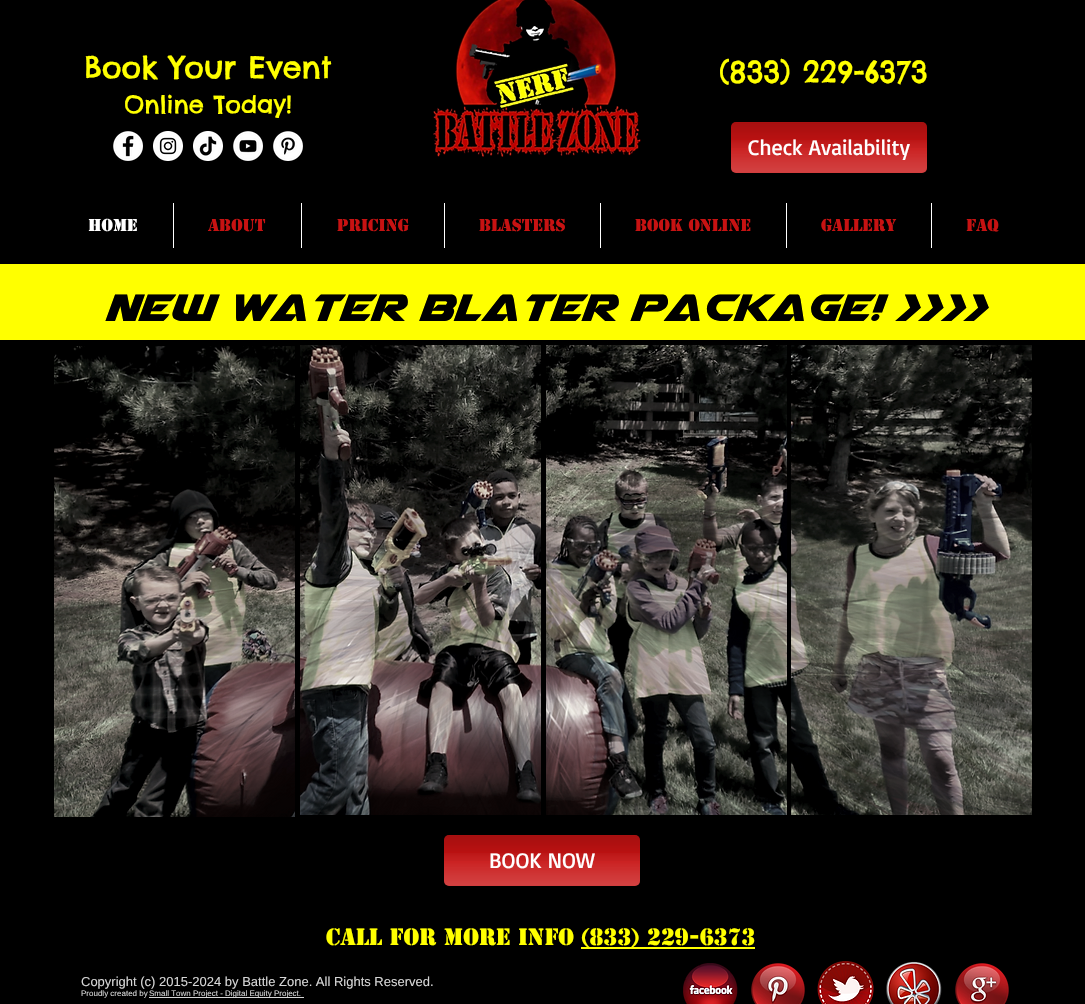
void draw(SkCanvas* c) {
SkPaint p;
p.setAntiAlias(true);
auto F=[&](const char* family, int weight, float size, bool italic = false){SkFontStyle style(weight, SkFontStyle::kNormal_Width,italic ? SkFontStyle::kItalic_Slant : SkFontStyle::kUpright_Slant);SkFont result(fontMgr->matchFamilyStyle(family, style), size);result.setSubpixel(true);return result;};
auto T=[&](const char* s, float x, float y, const SkFont& font){c->drawString(s, x, y, font, p);};
auto R=[&](float x, float y, float w, float h){c->drawRect(SkRect::MakeXYWH(x, y, w, h), p);};
auto Q=[&](float x, float y, float w, float h, float radius){c->drawRoundRect(SkRect::MakeXYWH(x, y, w, h), radius, radius, p);};
auto I=[&](const char* path, float x, float y, float w, float h){auto image = SkImages::DeferredFromEncodedData(SkData::MakeFromFileName(path));c->drawImageRect(image, SkRect::MakeXYWH(x, y, w, h), SkSamplingOptions());};
c->clear(0xff000000);
auto f1 = F("Chelsea Market",400,30);
p.setColor(0xffffff00);
T("Book Your Event",84,78,f1);
auto f2 = F("Chelsea Market",400,24);
T("Online Today!",124,113,f2);
I("1.png",433,0,208,157);
T("(833) 229-6373",719,83,f1);
I("2.png",113,131,30,30);
I("3.png",153,131,30,30);
I("4.png",193,131,30,30);
I("5.png",233,131,30,30);
I("6.png",273,131,30,30);
p.setColor(0xffc71212);
Q(731,122,196,51,5);
I("7.png",731,122,196,26);
I("8.png",731,140,196,33);
auto f3 = F("Basic",400,22);
p.setColor(0xffffffff);
T("Check Availability",748,155,f3);
auto f4 = F("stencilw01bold",700,16);
T("Home",88,231,f4);
R(173,203,1,45);
p.setColor(0xffc71212);
T("About",208,231,f4);
p.setColor(0xffffffff);
R(301,203,1,45);
p.setColor(0xffc71212);
T("Pricing",337,231,f4);
p.setColor(0xffffffff);
R(444,203,1,45);
p.setColor(0xffc71212);
T("Blasters",479,231,f4);
p.setColor(0xffffffff);
R(600,203,1,45);
p.setColor(0xffc71212);
T("Book Online",635,231,f4);
p.setColor(0xffffffff);
R(786,203,1,45);
p.setColor(0xffc71212);
T("Gallery",821,231,f4);
p.setColor(0xffffffff);
R(931,203,1,45);
p.setColor(0xffc71212);
T("FAQ",966,231,f4);
p.setColor(0xffffff00);
R(0,264,1085,76);
auto f5 = F("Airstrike",400,50);
p.setColor(0xff000000);
T("New Water Blater Package! >>>>",104,321,f5);
I("9.png",54,346,241,471);
I("10.png",300,345,241,470);
I("11.png",546,345,241,470);
I("12.png",791,345,241,470);
p.setColor(0xffc71212);
Q(444,835,196,51,5);
I("7.png",444,835,196,26);
I("8.png",444,853,196,33);
p.setColor(0xffffffff);
T("BOOK NOW",489,868,f3);
auto f6 = F("stencilw01bold",700,22);
p.setColor(0xffffff00);
T("Call for more info",326,945,f6);
R(581,947,174,2);
T("(833) 229-6373",581,945,f6);
auto f7 = F("Liberation Sans",400,13);
p.setColor(0xffd6d6d6);
T("Copyright (c) 2015-2024 by Battle Zone. All Rights Reserved.",81,986,f7);
auto f8 = F("Liberation Sans",400,8);
T("Proudly created by",81,996,f8);
R(149,997,150,1);
T("Small Town Project - Digital Equity Project.",149,996,f8);
R(299,997,5,1);
I("13.png",683,963,55,41);
I("14.png",751,963,54,41);
I("15.png",817,961,57,43);
I("16.png",886,961,56,43);
I("17.png",955,963,54,41);
}
